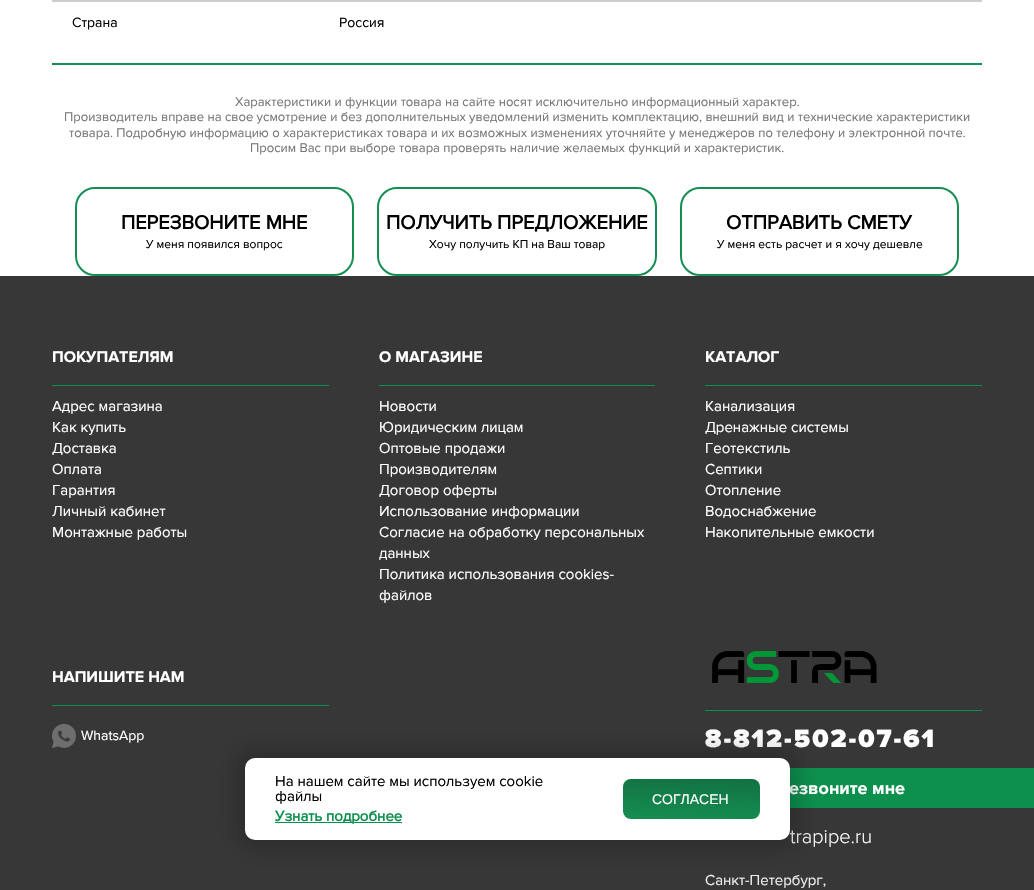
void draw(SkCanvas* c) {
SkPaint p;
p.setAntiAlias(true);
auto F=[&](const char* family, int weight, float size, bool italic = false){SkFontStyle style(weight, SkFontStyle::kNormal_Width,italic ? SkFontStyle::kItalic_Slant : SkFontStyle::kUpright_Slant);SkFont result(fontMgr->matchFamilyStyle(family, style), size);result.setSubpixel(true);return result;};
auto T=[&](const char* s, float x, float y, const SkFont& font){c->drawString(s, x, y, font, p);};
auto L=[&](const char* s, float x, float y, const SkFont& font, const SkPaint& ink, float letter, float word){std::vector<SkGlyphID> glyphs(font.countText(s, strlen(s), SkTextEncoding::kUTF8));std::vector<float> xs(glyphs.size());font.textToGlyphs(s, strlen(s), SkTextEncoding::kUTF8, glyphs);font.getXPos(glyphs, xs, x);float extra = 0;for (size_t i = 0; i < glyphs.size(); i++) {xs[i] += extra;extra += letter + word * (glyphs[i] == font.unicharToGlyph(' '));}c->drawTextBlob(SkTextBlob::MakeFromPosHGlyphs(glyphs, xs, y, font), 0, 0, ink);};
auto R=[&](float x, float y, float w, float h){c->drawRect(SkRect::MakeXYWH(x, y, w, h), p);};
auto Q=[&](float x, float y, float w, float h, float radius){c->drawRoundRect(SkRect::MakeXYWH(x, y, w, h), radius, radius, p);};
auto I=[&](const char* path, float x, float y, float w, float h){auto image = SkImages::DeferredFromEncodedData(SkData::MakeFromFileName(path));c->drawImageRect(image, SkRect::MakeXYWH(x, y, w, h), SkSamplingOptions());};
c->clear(0xffffffff);
p.setColor(0xffcdcdcd);
R(52,0,930,2);
auto f1 = F("Proxima Nova",400,14);
p.setColor(0xff000000);
T("Страна",72,27,f1);
T("Россия",339,27,f1);
p.setColor(0xff158e52);
R(52,63,930,2);
auto f2 = F("Proxima Nova",400,13);
p.setColor(0xff777777);
T("Характеристики и функции товара на сайте носят исключительно информационный характер.",235,106,f2);
T("Производитель вправе на свое усмотрение и без дополнительных уведомлений изменить комплектацию, внешний вид и технические характеристики",64,121,f2);
T("товара. Подробную информацию о характеристиках товара и их возможных изменениях уточняйте у менеджеров по телефону и электронной почте.",69,137,f2);
T("Просим Вас при выборе товара проверять наличие желаемых функций и характеристик.",250,152,f2);
p.setStroke(true);
p.setStrokeWidth(2);
p.setColor(0xff158e52);
c->drawRoundRect(SkRect::MakeXYWH(76,188,277,87),19,19,p);
auto f3 = F("Proxima Nova",700,20);
p.setStroke(false);
p.setColor(0xff000000);
T("ПЕРЕЗВОНИТЕ МНЕ",121,229,f3);
auto f4 = F("Proxima Nova",400,12);
T("У меня появился вопрос",146,248,f4);
p.setStroke(true);
p.setColor(0xff158e52);
c->drawRoundRect(SkRect::MakeXYWH(378,188,278,87),19,19,p);
p.setStroke(false);
p.setColor(0xff000000);
T("ПОЛУЧИТЬ ПРЕДЛОЖЕНИЕ",386,229,f3);
T("Хочу получить КП на Ваш товар",429,248,f4);
p.setStroke(true);
p.setColor(0xff158e52);
c->drawRoundRect(SkRect::MakeXYWH(681,188,277,87),19,19,p);
p.setStroke(false);
p.setColor(0xff000000);
T("ОТПРАВИТЬ СМЕТУ",726,229,f3);
T("У меня есть расчет и я хочу дешевле",717,248,f4);
p.setColor(0xff373737);
R(0,276,1034,614);
p.setColor(0xff0d8f4e);
R(52,385,277,1);
auto f5 = F("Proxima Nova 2",700,16);
p.setColor(0xffffffff);
T("ПОКУПАТЕЛЯМ",52,362,f5);
auto f6 = F("Proxima Nova",400,15);
T("Адрес магазина",52,411,f6);
T("Как купить",52,432,f6);
T("Доставка",52,453,f6);
T("Оплата",52,474,f6);
T("Гарантия",52,495,f6);
T("Личный кабинет",52,516,f6);
T("Монтажные работы",52,537,f6);
p.setColor(0xff0d8f4e);
R(379,385,276,1);
p.setColor(0xffffffff);
T("О МАГАЗИНЕ",379,362,f5);
T("Новости",379,411,f6);
T("Юридическим лицам",379,432,f6);
T("Оптовые продажи",379,453,f6);
T("Производителям",379,474,f6);
T("Договор оферты",379,495,f6);
T("Использование информации",379,516,f6);
T("Согласие на обработку персональных",379,537,f6);
T("данных",379,558,f6);
T("Политика использования cookies-",379,579,f6);
T("файлов",379,600,f6);
p.setColor(0xff0d8f4e);
R(705,385,277,1);
p.setColor(0xffffffff);
T("КАТАЛОГ",705,362,f5);
T("Канализация",705,411,f6);
T("Дренажные системы",705,432,f6);
T("Геотекстиль",705,453,f6);
T("Септики",705,474,f6);
T("Отопление",705,495,f6);
T("Водоснабжение",705,516,f6);
T("Накопительные емкости",705,537,f6);
p.setColor(0xff0d8f4e);
R(52,705,277,1);
p.setColor(0xffffffff);
T("НАПИШИТЕ НАМ",52,682,f5);
I("1.png",52,724,24,24);
T("WhatsApp",81,740,f1);
p.setColor(0xff0d8f4e);
R(705,710,277,1);
I("2.png",712,651,165,32);
auto f7 = F("Proxima Nova",900,26);
p.setColor(0xffffffff);
L("8-812-502-07-61",705,747,f7,p,2,0);
p.setColor(0xff0d904e);
R(790,768,244,40);
auto f8 = F("Proxima Nova 2",700,18);
p.setColor(0xffffffff);
T("езвоните мне",789,794,f8);
auto f9 = F("Proxima Nova",300,20);
T("trapipe.ru",790,843,f9);
p.setColor(0xffebebeb);
T("Санкт-Петербург,",705,885,f6);
p.setColor(0x33000000);
p.setMaskFilter(SkMaskFilter::MakeBlur(kNormal_SkBlurStyle, 11));
c->drawRoundRect(SkRect::MakeXYWH(236,749,563,100),19,19,p);
p.setMaskFilter(nullptr);
p.setColor(0xffffffff);
Q(245,758,545,82,10);
p.setColor(0xff000000);
T("На нашем сайте мы используем cookie",275,786,f6);
T("файлы",275,801,f6);
p.setColor(0xff0d8f4e);
R(275,822,127,1);
auto f10 = F("Proxima Nova",700,15);
T("Узнать подробнее",275,821,f10);
p.setColor(0xff158e52);
Q(623,779,137,40,8);
{
const SkColor colors[] = {0x33000000,0x00000000};
const float stops[] = {.03,.97};
const SkPoint ends[] = {{692,775}, {690,823}};
p.setShader(SkGradientShader::MakeLinear(ends, colors, stops, 2, SkTileMode::kClamp));
p.setAlpha(255);
}
Q(623,779,137,40,8);
auto f11 = F("Liberation Sans",400,14);
p.setShader(nullptr);
p.setColor(0xffffffff);
T("СОГЛАСЕН",652,804,f11);
}
